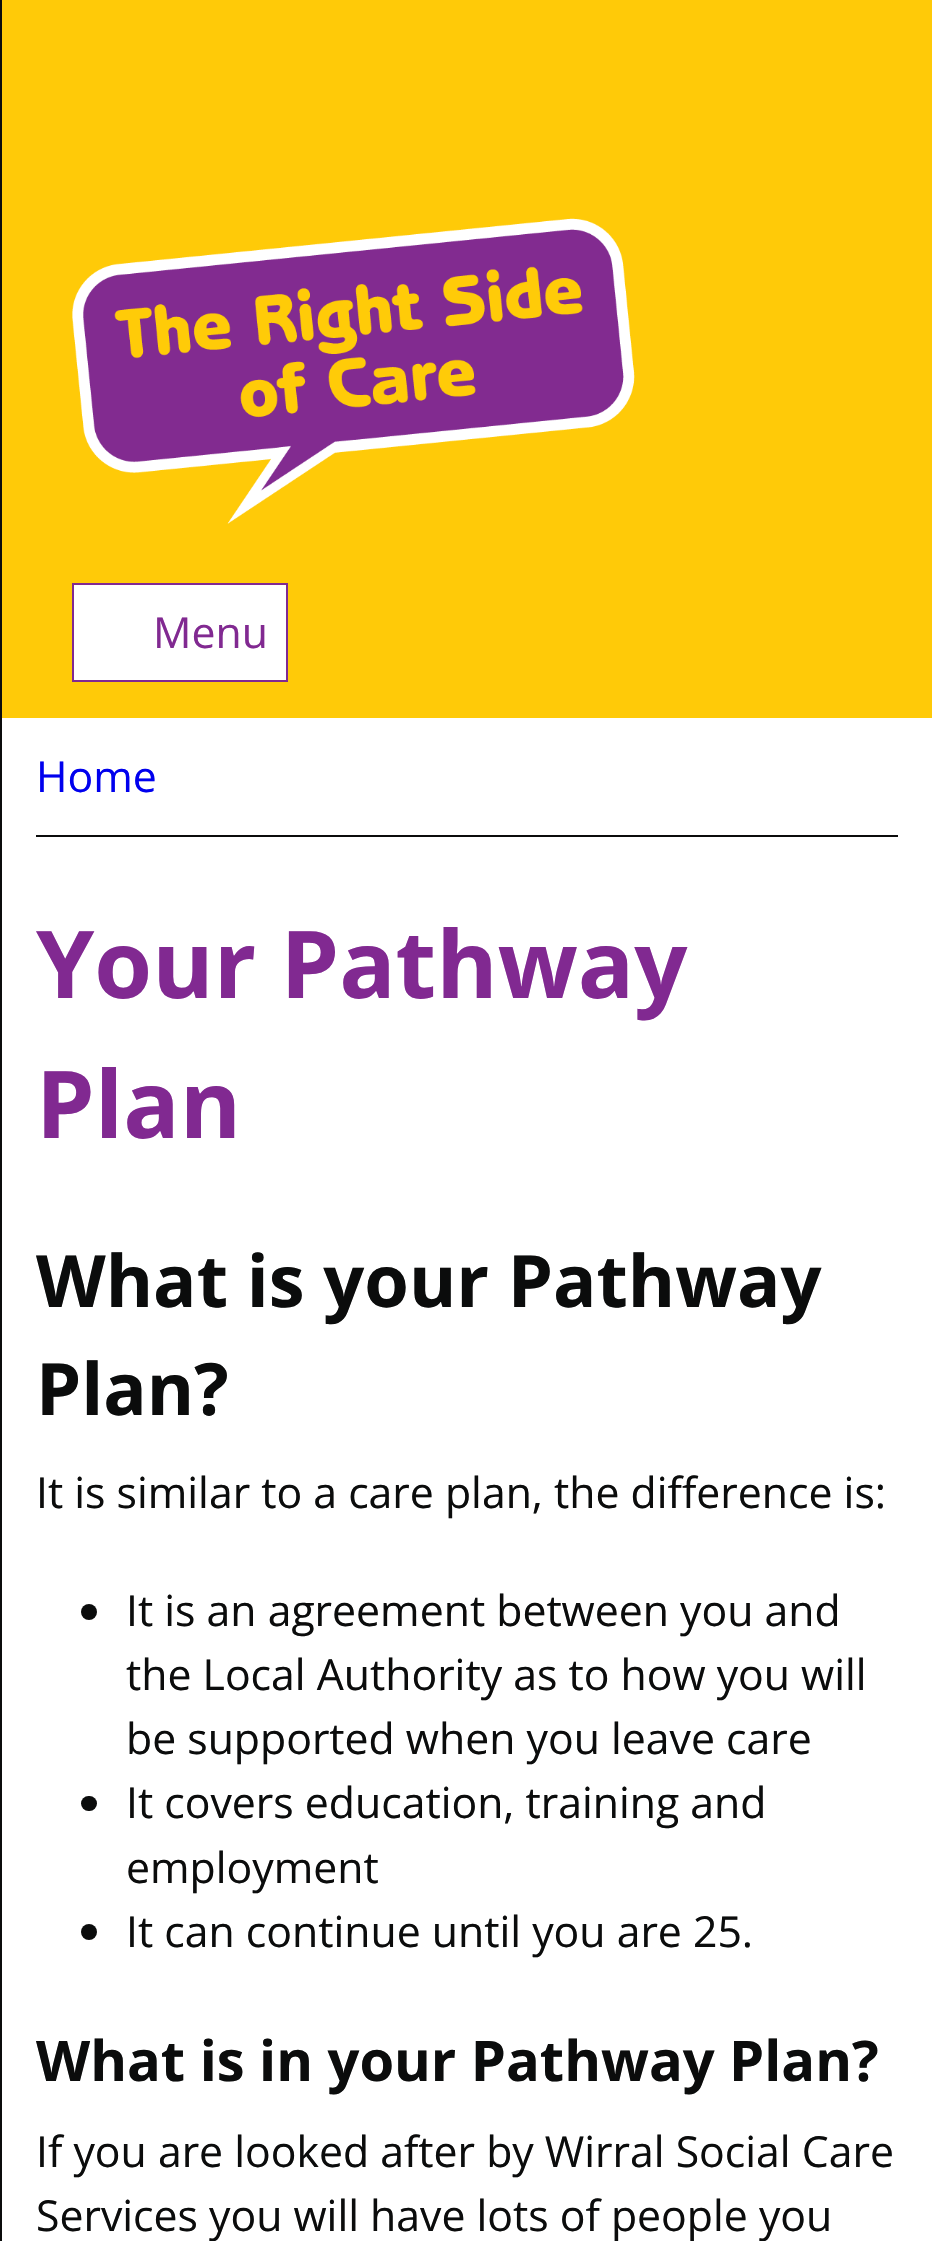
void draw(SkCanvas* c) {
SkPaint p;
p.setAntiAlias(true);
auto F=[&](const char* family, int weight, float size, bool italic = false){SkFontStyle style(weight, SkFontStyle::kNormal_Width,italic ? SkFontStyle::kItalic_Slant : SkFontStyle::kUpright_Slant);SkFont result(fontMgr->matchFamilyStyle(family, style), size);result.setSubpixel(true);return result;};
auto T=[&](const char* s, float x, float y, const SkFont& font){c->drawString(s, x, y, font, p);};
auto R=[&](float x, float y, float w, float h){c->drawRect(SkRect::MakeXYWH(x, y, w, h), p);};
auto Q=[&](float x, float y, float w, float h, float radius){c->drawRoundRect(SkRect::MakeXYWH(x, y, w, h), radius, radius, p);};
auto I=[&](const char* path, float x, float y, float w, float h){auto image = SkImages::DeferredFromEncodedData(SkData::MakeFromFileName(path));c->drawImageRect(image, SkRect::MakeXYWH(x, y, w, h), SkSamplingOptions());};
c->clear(0xffffffff);
p.setColor(0xff0b0c0c);
R(0,0,2,2241);
p.setColor(0xffffca08);
R(2,0,930,718);
I("1.png",72,218,563,306);
p.setColor(0xffffffff);
c->drawRect(SkRect::MakeXYWH(73,584,214,97),p);
p.setStroke(true);
p.setStrokeWidth(2);
p.setColor(0xff812991);
c->drawRect(SkRect::MakeXYWH(73,584,214,97),p);
auto f1 = F("Open Sans",400,42.75);
p.setStroke(false);
T("Menu",153,648,f1);
p.setColor(0xff0b0c0c);
R(36,835,862,2);
p.setColor(0xff0000ee);
T("Home",36,792,f1);
auto f2 = F("Open Sans",700,93.5);
p.setColor(0xff812991);
T("Your Pathway",36,998,f2);
T("Plan",36,1138,f2);
auto f3 = F("Open Sans",700,72.1);
p.setColor(0xff0b0c0c);
T("What is your Pathway",36,1307,f3);
T("Plan?",36,1415,f3);
T("It is similar to a care plan, the difference is:",36,1508,f1);
c->drawCircle(89,1612,8,p);
T("It is an agreement between you and",126,1626,f1);
T("the Local Authority as to how you will",126,1690,f1);
T("be supported when you leave care",126,1754,f1);
Q(81,1796,16,15,7.5);
T("It covers education, training and",126,1818,f1);
T("employment",126,1883,f1);
c->drawCircle(89,1932,8,p);
T("It can continue until you are 25.",126,1947,f1);
auto f4 = F("Open Sans",700,56);
T("What is in your Pathway Plan?",36,2081,f4);
T("If you are looked after by Wirral Social Care",36,2167,f1);
T("Services you will have lots of people you",36,2231,f1);
}
